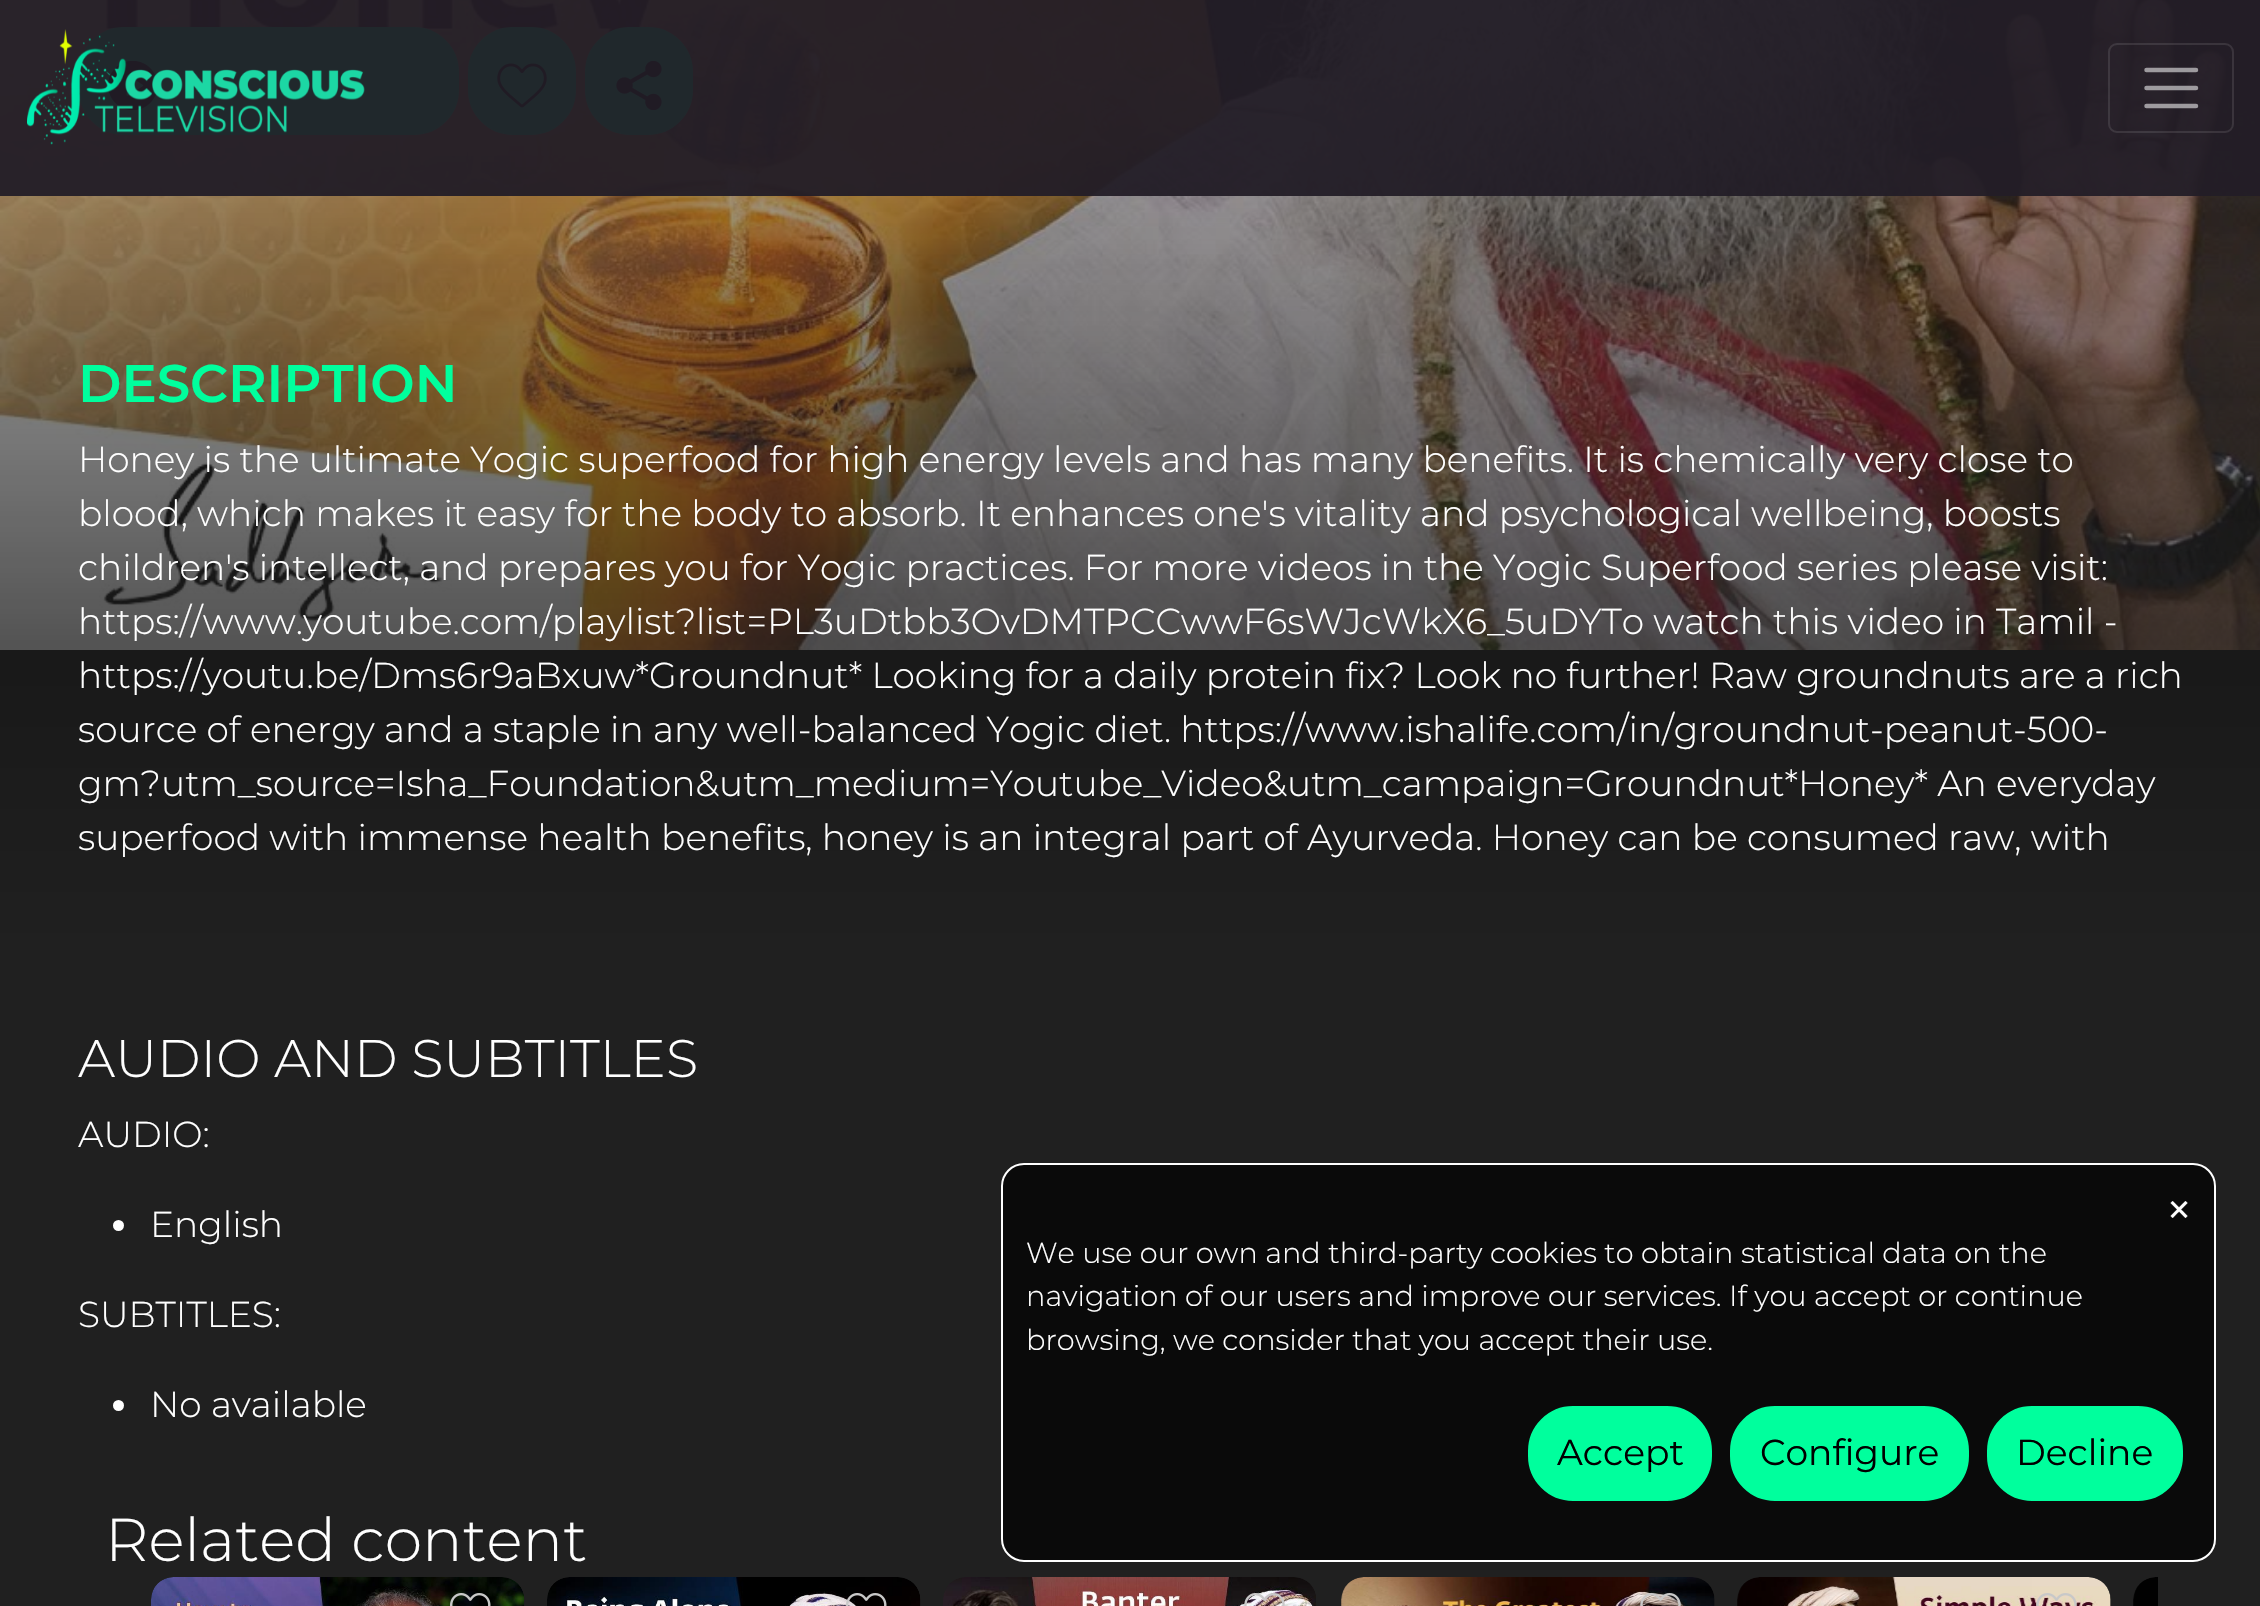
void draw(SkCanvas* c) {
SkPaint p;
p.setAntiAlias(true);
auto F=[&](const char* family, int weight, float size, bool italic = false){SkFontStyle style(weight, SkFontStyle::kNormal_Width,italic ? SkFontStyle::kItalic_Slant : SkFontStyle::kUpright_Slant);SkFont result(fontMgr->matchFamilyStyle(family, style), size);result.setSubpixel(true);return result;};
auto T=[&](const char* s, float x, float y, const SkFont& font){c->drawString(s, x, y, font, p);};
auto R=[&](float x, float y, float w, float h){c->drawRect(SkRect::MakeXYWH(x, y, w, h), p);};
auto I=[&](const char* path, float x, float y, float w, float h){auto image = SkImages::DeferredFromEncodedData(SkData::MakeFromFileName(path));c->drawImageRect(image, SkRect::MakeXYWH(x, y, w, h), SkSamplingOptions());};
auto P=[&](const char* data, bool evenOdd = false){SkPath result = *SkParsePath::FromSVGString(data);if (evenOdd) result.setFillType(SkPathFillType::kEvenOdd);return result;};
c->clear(0xff000000);
I("2.png",0,0,2260,650);
{
const SkColor colors[] = {0xff202020,0x54202020};
const float stops[] = {.41,.74};
const SkPoint ends[] = {{1131,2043}, {1131,-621}};
p.setShader(SkGradientShader::MakeLinear(ends, colors, stops, 2, SkTileMode::kClamp));
p.setAlpha(255);
}
R(0,0,2260,1606);
p.setShader(nullptr);
p.setColor(0xff00ff9d);
c->drawRoundRect(SkRect::MakeXYWH(80,28,378,106),44,44,p);
p.setStroke(true);
p.setStrokeWidth(2);
c->drawRoundRect(SkRect::MakeXYWH(80,28,378,106),44,44,p);
I("3.png",108,61,49,49);
p.setStroke(false);
c->drawRoundRect(SkRect::MakeXYWH(469,28,106,106),44,44,p);
p.setStroke(true);
c->drawRoundRect(SkRect::MakeXYWH(469,28,106,106),44,44,p);
I("4.png",497,63,50,45);
p.setStroke(false);
c->drawRoundRect(SkRect::MakeXYWH(586,28,106,106),44,44,p);
p.setStroke(true);
c->drawRoundRect(SkRect::MakeXYWH(586,28,106,106),44,44,p);
I("5.png",616,61,46,49);
p.setStroke(false);
p.setColor(0xf2221c26);
R(0,0,2260,196);
I("1.png",27,29,338,116);
p.setStroke(true);
p.setColor(0x1affffff);
c->drawRoundRect(SkRect::MakeXYWH(2109,44,124,88),8,8,p);
p.setStrokeWidth(4.5);
p.setStrokeCap(SkPaint::kRound_Cap);
p.setColor(0x8cffffff);
c->drawPath(P("M2146.5 70h49.5m-49.5 18h49.5m-49.5 18h49.5"),p);
auto f1 = F("Montserrat",600,52.75);
p.setStroke(false);
p.setColor(0xff00ff9d);
T("DESCRIPTION",78,402,f1);
auto f2 = F("Montserrat",300,36);
p.setColor(0xffffffff);
T("Honey is the ultimate Yogic superfood for high energy levels and has many benefits. It is chemically very close to",78,472,f2);
T("blood, which makes it easy for the body to absorb. It enhances one's vitality and psychological wellbeing, boosts",78,526,f2);
T("children's intellect, and prepares you for Yogic practices. For more videos in the Yogic Superfood series please visit:",78,580,f2);
T("https://www.youtube.com/playlist?list=PL3uDtbb3OvDMTPCCwwF6sWJcWkX6_5uDYTo watch this video in Tamil -",78,634,f2);
T("https://youtu.be/Dms6r9aBxuw*Groundnut* Looking for a daily protein fix? Look no further! Raw groundnuts are a rich",78,688,f2);
T("source of energy and a staple in any well-balanced Yogic diet. https://www.ishalife.com/in/groundnut-peanut-500-",78,742,f2);
T("gm?utm_source=Isha_Foundation&utm_medium=Youtube_Video&utm_campaign=Groundnut*Honey* An everyday",78,796,f2);
T("superfood with immense health benefits, honey is an integral part of Ayurveda. Honey can be consumed raw, with",78,850,f2);
auto f3 = F("Montserrat",300,52.75);
T("AUDIO AND SUBTITLES",78,1077,f3);
T("AUDIO:",78,1147,f2);
c->drawCircle(118.5,1225.5,5.5,p);
T("English",150,1237,f2);
T("SUBTITLES:",78,1327,f2);
c->drawCircle(118.5,1405.5,5.5,p);
T("No available",150,1417,f2);
auto f4 = F("Montserrat",300,60.25);
T("Related content",105,1561,f4);
I("6.png",151,1577,374,29);
I("7.png",450,1593,41,13);
I("8.png",547,1577,374,29);
I("9.png",846,1593,41,13);
I("10.png",943,1577,373,29);
I("11.png",1244,1593,41,13);
I("12.png",1341,1577,374,29);
I("13.png",1640,1593,41,13);
I("14.png",1737,1577,374,29);
I("15.png",2036,1593,41,13);
I("16.png",2133,1577,25,29);
p.setColor(0xff0a0a0a);
c->drawRoundRect(SkRect::MakeXYWH(1002,1164,1213,397),22,22,p);
p.setStroke(true);
p.setStrokeWidth(2);
p.setStrokeCap(SkPaint::kButt_Cap);
p.setColor(0xffffffff);
c->drawRoundRect(SkRect::MakeXYWH(1002,1164,1213,397),22,22,p);
auto f5 = F("DejaVu Sans",400,28.8);
p.setStroke(false);
T("✕",2167,1220,f5);
auto f6 = F("Montserrat",300,28.8);
T("We use our own and third-party cookies to obtain statistical data on the",1026,1263,f6);
T("navigation of our users and improve our services. If you accept or continue",1026,1306,f6);
T("browsing, we consider that you accept their use.",1026,1350,f6);
p.setColor(0xff00ff9d);
c->drawRoundRect(SkRect::MakeXYWH(1529,1407,182,93),44,44,p);
p.setStroke(true);
c->drawRoundRect(SkRect::MakeXYWH(1529,1407,182,93),44,44,p);
auto f7 = F("Montserrat",400,36);
p.setStroke(false);
p.setColor(0xff000000);
T("Accept",1557,1465,f7);
p.setColor(0xff00ff9d);
c->drawRoundRect(SkRect::MakeXYWH(1731,1407,237,93),44,44,p);
p.setStroke(true);
c->drawRoundRect(SkRect::MakeXYWH(1731,1407,237,93),44,44,p);
p.setStroke(false);
p.setColor(0xff000000);
T("Configure",1760,1465,f7);
p.setColor(0xff00ff9d);
c->drawRoundRect(SkRect::MakeXYWH(1988,1407,194,93),44,44,p);
p.setStroke(true);
c->drawRoundRect(SkRect::MakeXYWH(1988,1407,194,93),44,44,p);
p.setStroke(false);
p.setColor(0xff000000);
T("Decline",2016,1465,f7);
}
